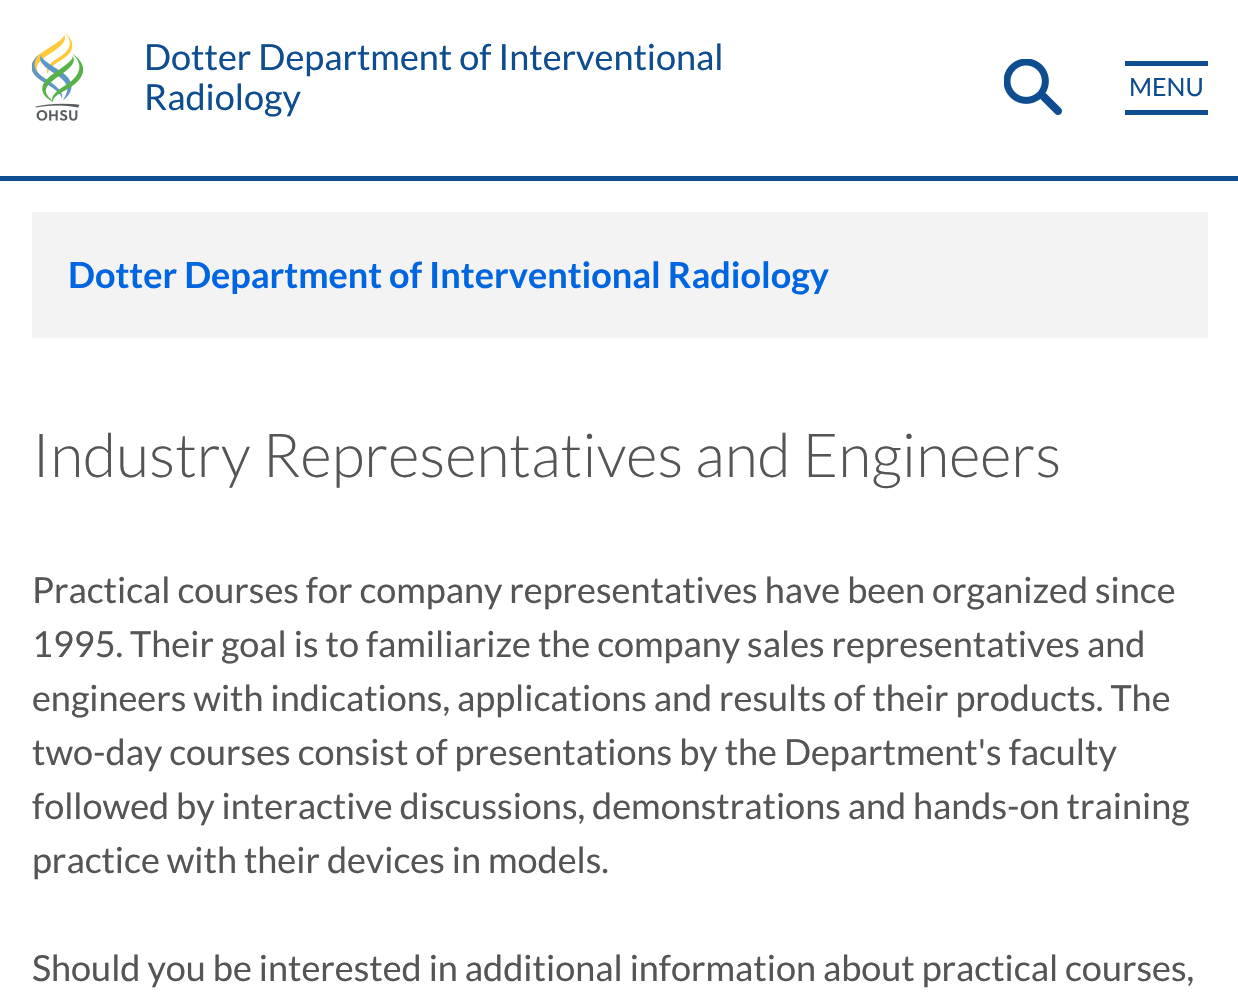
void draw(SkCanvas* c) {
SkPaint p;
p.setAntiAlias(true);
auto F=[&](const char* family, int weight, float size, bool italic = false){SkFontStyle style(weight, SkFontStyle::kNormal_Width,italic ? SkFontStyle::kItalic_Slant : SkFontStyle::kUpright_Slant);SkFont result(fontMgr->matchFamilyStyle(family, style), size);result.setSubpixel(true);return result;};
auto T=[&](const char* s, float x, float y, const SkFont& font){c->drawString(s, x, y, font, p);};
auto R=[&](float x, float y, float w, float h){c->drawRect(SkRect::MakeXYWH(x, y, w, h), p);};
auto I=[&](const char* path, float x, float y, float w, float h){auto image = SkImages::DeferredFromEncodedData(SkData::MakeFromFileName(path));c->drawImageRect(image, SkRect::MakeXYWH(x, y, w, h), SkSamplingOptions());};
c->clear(0xffffffff);
I("1.png",32,32,51,89);
auto f1 = F("Lato",400,36);
p.setColor(0xff0e4d8f);
T("Dotter Department of Interventional",144,70,f1);
T("Radiology",144,110,f1);
I("2.png",1004,59,58,56);
R(1125,61,83,5);
R(1125,110,83,5);
auto f2 = F("Lato",400,25);
T("MENU",1129,96,f2);
R(0,176,1238,5);
p.setColor(0xfff3f3f3);
R(32,212,1176,126);
auto f3 = F("Lato",700,36);
p.setColor(0xff0065e0);
T("Dotter Department of Interventional Radiology",68,288,f3);
auto f4 = F("Lato",300,60.75);
p.setColor(0xff555555);
T("Industry Representatives and Engineers",32,477,f4);
T("Practical courses for company representatives have been organized since",32,603,f1);
T("1995. Their goal is to familiarize the company sales representatives and",32,657,f1);
T("engineers with indications, applications and results of their products. The",32,711,f1);
T("two-day courses consist of presentations by the Department's faculty",32,765,f1);
T("followed by interactive discussions, demonstrations and hands-on training",32,819,f1);
T("practice with their devices in models.",32,873,f1);
T("Should you be interested in additional information about practical courses,",32,981,f1);
}
